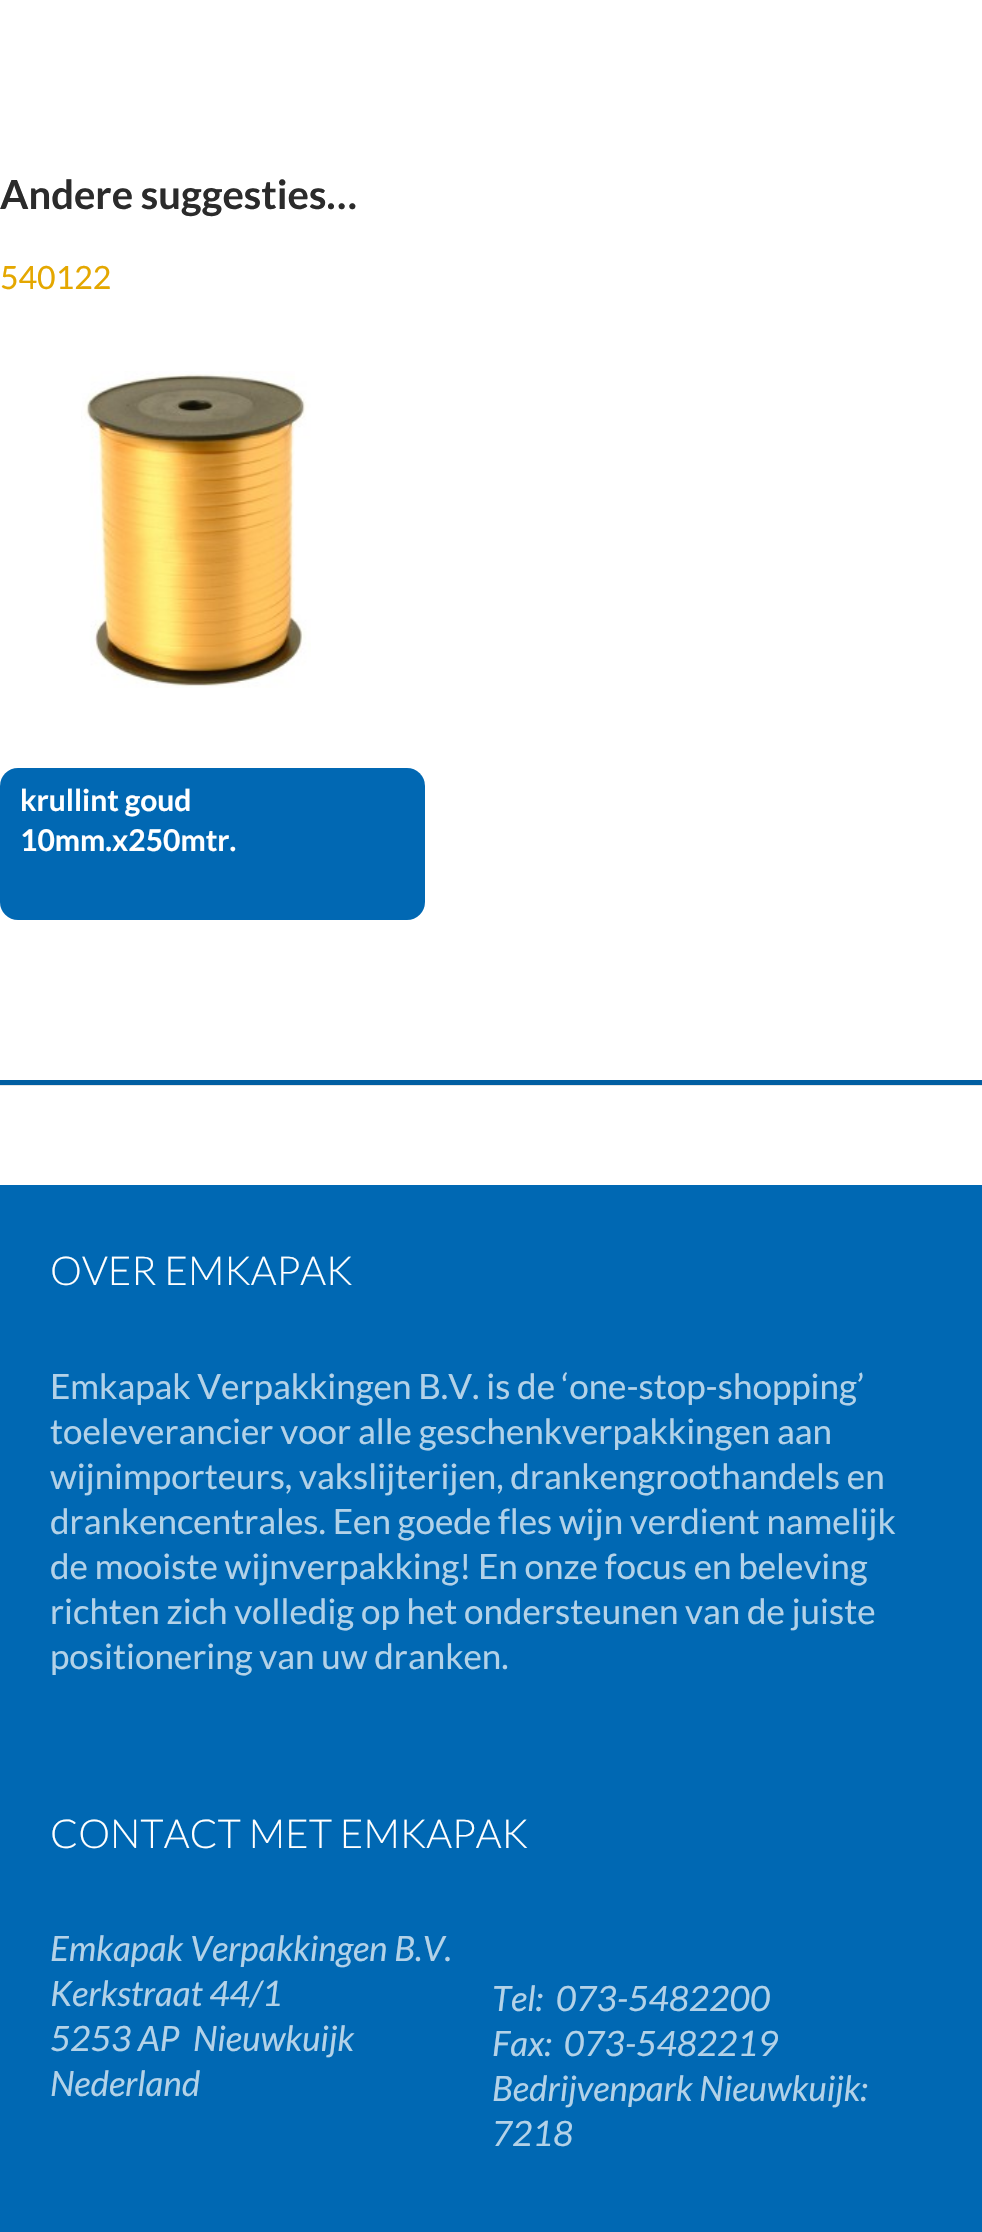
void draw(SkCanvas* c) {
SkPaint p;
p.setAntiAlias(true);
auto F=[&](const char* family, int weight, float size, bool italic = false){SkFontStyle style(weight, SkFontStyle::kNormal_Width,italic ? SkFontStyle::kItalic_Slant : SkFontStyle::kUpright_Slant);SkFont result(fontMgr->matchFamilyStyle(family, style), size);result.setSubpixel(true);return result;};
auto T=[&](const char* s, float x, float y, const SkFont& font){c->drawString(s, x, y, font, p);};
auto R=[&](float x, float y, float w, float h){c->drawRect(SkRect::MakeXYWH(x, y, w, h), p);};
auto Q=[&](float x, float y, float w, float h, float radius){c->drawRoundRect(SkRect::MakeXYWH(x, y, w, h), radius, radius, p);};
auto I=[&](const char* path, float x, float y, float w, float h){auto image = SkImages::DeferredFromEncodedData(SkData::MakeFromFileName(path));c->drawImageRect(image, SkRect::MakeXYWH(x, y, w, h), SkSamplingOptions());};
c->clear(0xffffffff);
auto f1 = F("Lato",700,40);
p.setColor(0xff2b2b2b);
T("Andere suggesties…",0,209,f1);
auto f2 = F("Lato",400,32);
p.setColor(0xffe4a700);
T("540122",0,289,f2);
I("1.png",81,371,230,317);
p.setColor(0xff0168b3);
Q(0,768,425,152,18);
auto f3 = F("Lato",700,30);
p.setColor(0xffffffff);
T("krullint goud",20,811,f3);
T("10mm.x250mtr.",20,851,f3);
p.setColor(0xff0168b3);
R(0,1083,982,2);
p.setColor(0xff015ea1);
R(0,1080,982,3);
p.setColor(0x1a000000);
R(0,1083,982,3);
p.setColor(0xff0068b3);
R(0,1185,982,1047);
auto f4 = F("Lato",300,40);
p.setColor(0xffffffff);
T("OVER EMKAPAK",50,1285,f4);
auto f5 = F("Lato",400,35);
p.setColor(0xffb3d2e8);
T("Emkapak Verpakkingen B.V. is de ‘one-stop-shopping’",50,1399,f5);
T("toeleverancier voor alle geschenkverpakkingen aan",50,1444,f5);
T("wijnimporteurs, vakslijterijen, drankengroothandels en",50,1489,f5);
T("drankencentrales. Een goede fles wijn verdient namelijk",50,1534,f5);
T("de mooiste wijnverpakking! En onze focus en beleving",50,1579,f5);
T("richten zich volledig op het ondersteunen van de juiste",50,1624,f5);
T("positionering van uw dranken.",50,1669,f5);
p.setColor(0xffffffff);
T("CONTACT MET EMKAPAK",50,1848,f4);
auto f6 = F("Lato",400,35,true);
p.setColor(0xffb3d2e8);
T("Emkapak Verpakkingen B.V.",50,1961,f6);
T("Kerkstraat 44/1",50,2006,f6);
T("5253 AP",50,2051,f6);
T("Nieuwkuijk",193,2051,f6);
T("Nederland",50,2096,f6);
T("Tel:",492,2011,f6);
T("073-5482200",556,2011,f6);
T("Fax:",492,2056,f6);
T("073-5482219",564,2056,f6);
T("Bedrijvenpark Nieuwkuijk:",492,2101,f6);
T("7218",492,2146,f6);
}
